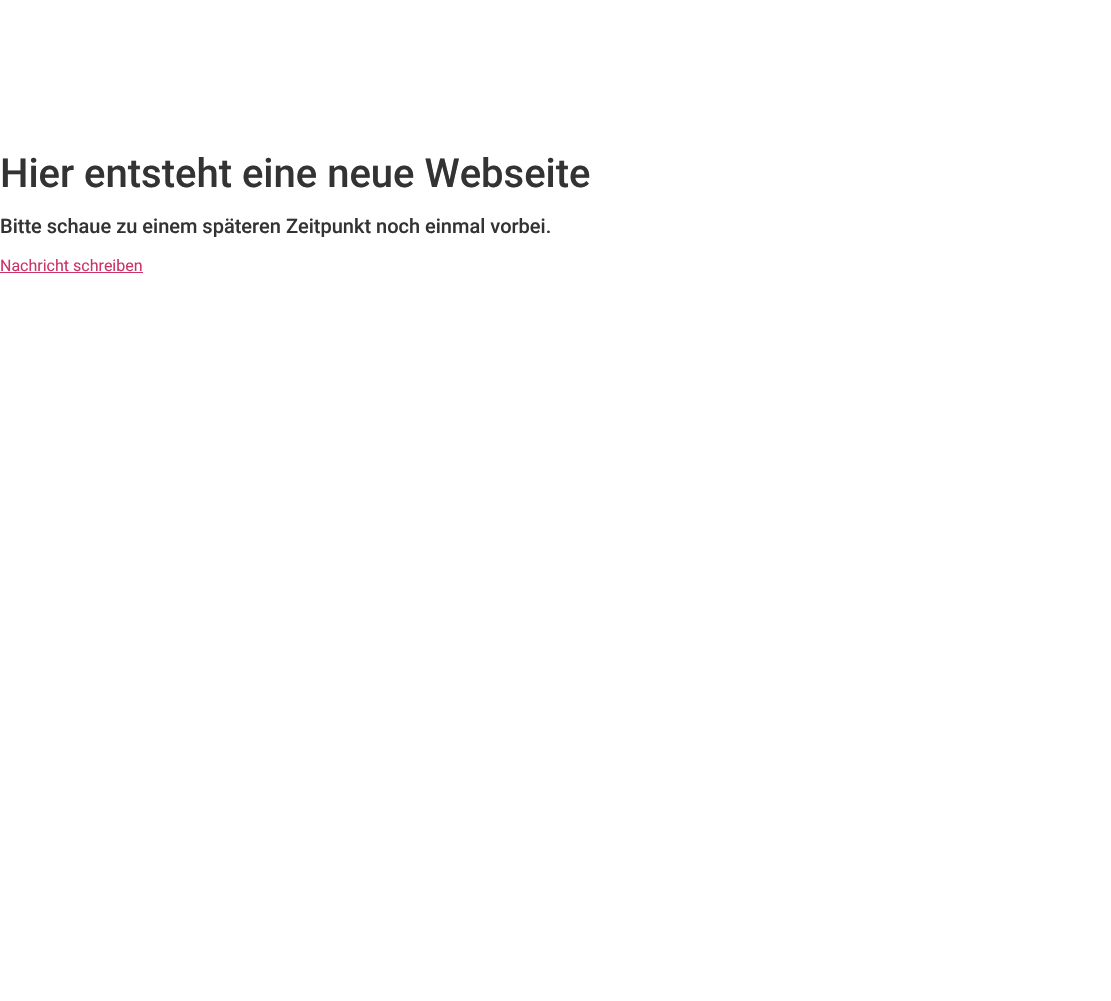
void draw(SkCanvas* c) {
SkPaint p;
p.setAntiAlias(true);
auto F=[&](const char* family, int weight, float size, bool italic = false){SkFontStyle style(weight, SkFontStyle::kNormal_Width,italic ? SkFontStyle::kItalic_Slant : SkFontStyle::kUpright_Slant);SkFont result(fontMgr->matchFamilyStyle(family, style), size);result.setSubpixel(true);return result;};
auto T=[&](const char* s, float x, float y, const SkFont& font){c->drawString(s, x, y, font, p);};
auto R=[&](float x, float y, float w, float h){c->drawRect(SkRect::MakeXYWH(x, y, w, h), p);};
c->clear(0xffffffff);
auto f1 = F("Roboto",500,40);
p.setColor(0xff333333);
T("Hier entsteht eine neue Webseite",0,187,f1);
auto f2 = F("Roboto",500,20);
T("Bitte schaue zu einem späteren Zeitpunkt noch einmal vorbei.",0,233,f2);
auto f3 = F("Roboto",400,16);
p.setColor(0xffcc3366);
T("Nachricht schreiben",0,271,f3);
R(0,272,143,1);
}
